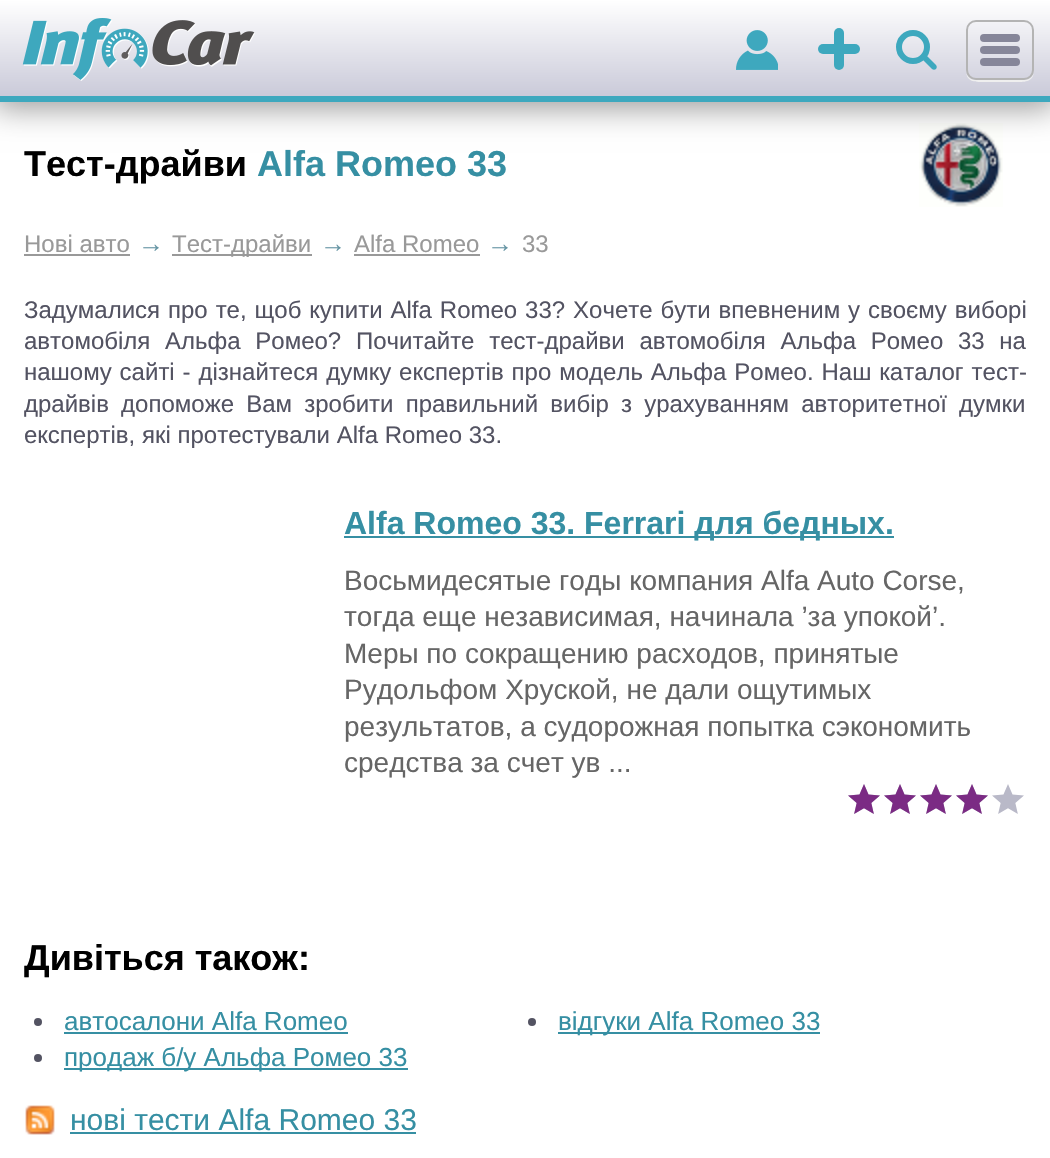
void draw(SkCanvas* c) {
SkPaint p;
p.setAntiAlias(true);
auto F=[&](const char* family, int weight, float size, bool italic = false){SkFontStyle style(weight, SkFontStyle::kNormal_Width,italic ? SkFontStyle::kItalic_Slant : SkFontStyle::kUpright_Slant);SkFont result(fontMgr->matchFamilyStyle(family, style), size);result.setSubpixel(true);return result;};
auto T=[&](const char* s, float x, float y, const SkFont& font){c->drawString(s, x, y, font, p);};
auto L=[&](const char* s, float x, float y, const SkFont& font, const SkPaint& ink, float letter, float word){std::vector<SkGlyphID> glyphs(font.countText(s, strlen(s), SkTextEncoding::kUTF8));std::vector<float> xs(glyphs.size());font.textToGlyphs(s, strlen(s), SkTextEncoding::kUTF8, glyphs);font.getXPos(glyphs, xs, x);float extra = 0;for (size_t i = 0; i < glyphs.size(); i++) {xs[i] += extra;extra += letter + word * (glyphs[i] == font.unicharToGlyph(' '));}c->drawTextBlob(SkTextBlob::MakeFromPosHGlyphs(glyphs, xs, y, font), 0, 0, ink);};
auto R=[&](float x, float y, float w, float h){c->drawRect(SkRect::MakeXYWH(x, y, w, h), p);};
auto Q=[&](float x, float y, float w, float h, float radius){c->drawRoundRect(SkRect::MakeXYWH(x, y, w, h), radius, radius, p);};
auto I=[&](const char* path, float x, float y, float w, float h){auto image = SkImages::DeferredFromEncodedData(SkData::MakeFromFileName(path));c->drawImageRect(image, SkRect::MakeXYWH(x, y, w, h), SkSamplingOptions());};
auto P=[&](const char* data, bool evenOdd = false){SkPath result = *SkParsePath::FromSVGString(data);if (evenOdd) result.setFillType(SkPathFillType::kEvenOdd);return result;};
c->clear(0xffffffff);
I("3.png",919,123,84,84);
p.setColor(0x66000000);
p.setMaskFilter(SkMaskFilter::MakeBlur(kNormal_SkBlurStyle, 15));
c->drawRect(SkRect::MakeXYWH(-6,-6,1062,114),p);
p.setMaskFilter(nullptr);
{
const SkColor colors[] = {0xffffffff,0xffcacad9};
const float stops[] = {0,1};
const SkPoint ends[] = {{525,0}, {525,96}};
p.setShader(SkGradientShader::MakeLinear(ends, colors, stops, 2, SkTileMode::kClamp));
p.setAlpha(255);
}
R(0,0,1050,96);
p.setShader(nullptr);
p.setColor(0xff3da8be);
R(0,96,1050,6);
I("1.png",22,18,233,63);
I("2.png",736,30,42,40);
Q(818,44,42,10,5);
Q(834,28,10,42,5);
p.setStroke(true);
p.setStrokeWidth(6);
c->drawCircle(913,47,14,p);
p.setStroke(false);
c->drawPath(P("M922 55c1-1 3-1 4 0l10 10c1 1 1 3 0 4c-1 1-3 1-4 0l-10-10c-1-1-1-3 0-4z"),p);
p.setColor(0xffefefef);
c->drawPath(P("M966 70c0 12 8 12 18 12h32c10 0 18 0 18-12c0 6-4 10-10 10h-48c-6 0-10-4-10-10z"),p);
p.setStroke(true);
p.setStrokeWidth(2);
p.setColor(0xffb4b4b4);
c->drawRoundRect(SkRect::MakeXYWH(967,21,66,58),9,9,p);
p.setStroke(false);
p.setColor(0xff868699);
Q(980,34,40,8,4);
Q(980,46,40,8,4);
Q(980,58,40,8,4);
auto f1 = F("Liberation Sans",700,36);
p.setColor(0xff000000);
T("Тест-драйви",24,176,f1);
p.setColor(0xff368fa3);
T("Alfa Romeo 33",257,176,f1);
auto f2 = F("Liberation Sans",400,24);
p.setColor(0xff999999);
T("Нові авто",24,252,f2);
R(24,254,106,2);
auto f3 = F("Liberation Sans",400,26);
p.setColor(0xff6695a4);
T("→",138,252,f3);
p.setColor(0xff999999);
R(172,254,140,2);
T("Тест-драйви",172,252,f2);
p.setColor(0xff6695a4);
T("→",320,252,f3);
p.setColor(0xff999999);
T("Alfa Romeo",354,252,f2);
R(354,254,126,2);
p.setColor(0xff6695a4);
T("→",487,252,f3);
p.setColor(0xff999999);
T("33",522,252,f2);
p.setColor(0xff535362);
L("Задумалися про те, щоб купити Alfa Romeo 33? Хочете бути впевненим у своєму виборі",24,318,f2,p,0,1.25);
L("автомобіля Альфа Ромео? Почитайте тест-драйви автомобіля Альфа Ромео 33 на",24,349,f2,p,0,8);
L("нашому сайті - дізнайтеся думку експертів про модель Альфа Ромео. Наш каталог тест-",24,380,f2,p,0,1.25);
L("драйвів допоможе Вам зробити правильний вибір з урахуванням авторитетної думки",24,412,f2,p,0,5.5);
T("експертів, які протестували Alfa Romeo 33.",24,443,f2);
p.setColor(0xff368fa3);
R(344,536,550,2);
auto f4 = F("Liberation Sans",700,32);
T("Alfa Romeo 33. Ferrari для бедных.",344,534,f4);
auto f5 = F("Liberation Sans",400,28);
p.setColor(0xff666666);
T("Восьмидесятые годы компания Alfa Auto Corse,",344,590,f5);
T("тогда еще независимая, начинала ’за упокой’.",344,626,f5);
T("Меры по сокращению расходов, принятые",344,663,f5);
T("Рудольфом Хруской, не дали ощутимых",344,699,f5);
T("результатов, а судорожная попытка сэкономить",344,736,f5);
T("средства за счет ув ...",344,772,f5);
I("4.png",848,784,176,30);
I("5.png",848,784,140,30);
p.setColor(0xff000000);
T("Дивіться також:",24,970,f1);
p.setColor(0xff535362);
c->drawCircle(38,1022,4,p);
p.setColor(0xff368fa3);
T("автосалони Alfa Romeo",64,1030,f3);
R(64,1032,284,2);
p.setColor(0xff535362);
c->drawCircle(532,1022,4,p);
p.setColor(0xff368fa3);
R(558,1032,262,2);
T("відгуки Alfa Romeo 33",558,1030,f3);
p.setColor(0xff535362);
c->drawCircle(38,1058,4,p);
p.setColor(0xff368fa3);
R(64,1068,344,2);
T("продаж б/у Альфа Ромео 33",64,1066,f3);
I("6.png",25,1105,30,30);
auto f6 = F("Liberation Sans",400,30);
T("нові тести Alfa Romeo 33",70,1130,f6);
R(70,1132,346,2);
}
